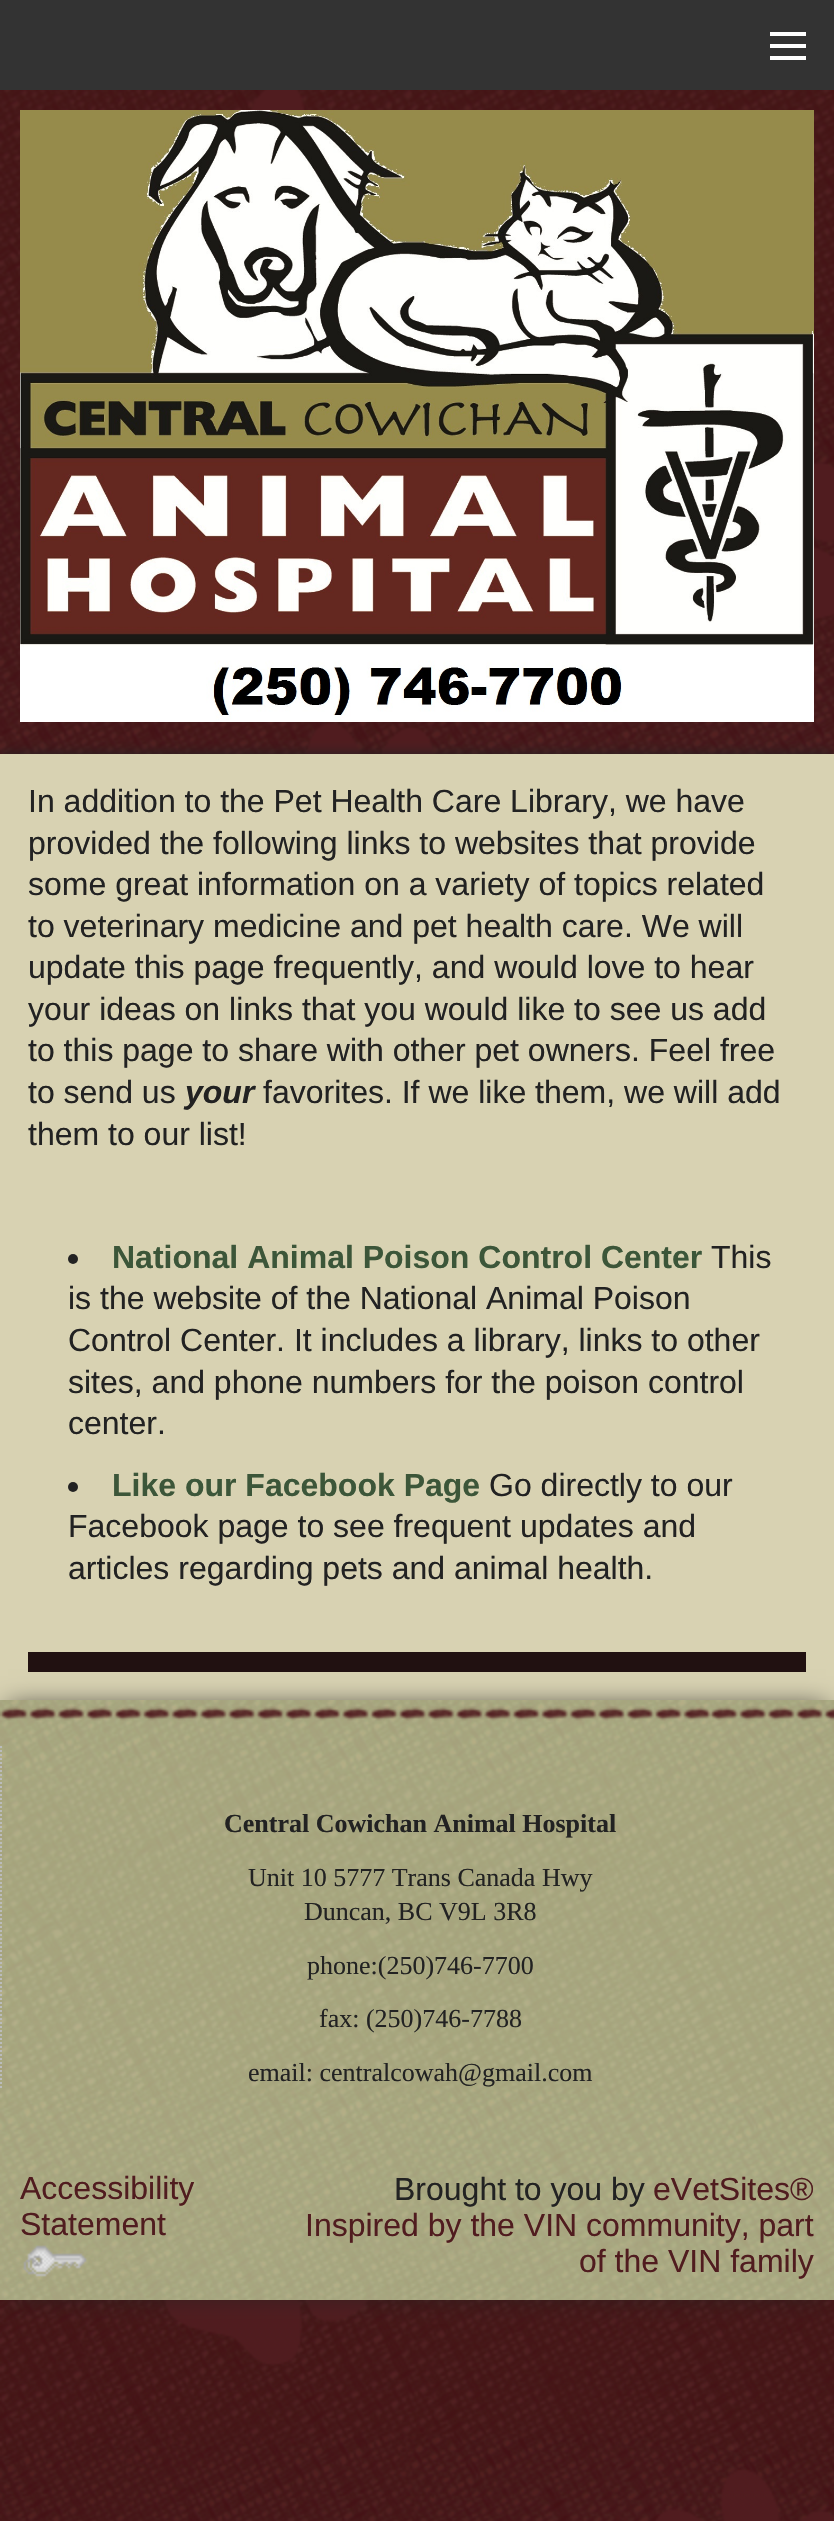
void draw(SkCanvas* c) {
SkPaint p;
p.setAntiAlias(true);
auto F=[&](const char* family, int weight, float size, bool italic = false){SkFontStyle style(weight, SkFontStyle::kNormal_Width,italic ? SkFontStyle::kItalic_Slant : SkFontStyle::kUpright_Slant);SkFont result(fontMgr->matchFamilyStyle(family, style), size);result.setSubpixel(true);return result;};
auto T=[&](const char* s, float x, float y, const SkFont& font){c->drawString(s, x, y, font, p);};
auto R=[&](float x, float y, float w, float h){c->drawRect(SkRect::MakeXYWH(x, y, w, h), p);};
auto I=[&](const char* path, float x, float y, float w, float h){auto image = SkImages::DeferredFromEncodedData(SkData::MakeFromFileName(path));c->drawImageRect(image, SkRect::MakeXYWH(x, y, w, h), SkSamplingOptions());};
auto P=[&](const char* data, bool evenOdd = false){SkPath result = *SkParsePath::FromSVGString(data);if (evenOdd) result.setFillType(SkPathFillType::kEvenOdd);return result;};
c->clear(0xffffffff);
I("1.png",0,90,834,2431);
p.setColor(0xff333333);
R(0,0,834,90);
p.setColor(0xffffffff);
R(770,56,36,4);
R(770,44,36,4);
R(770,32,36,4);
I("2.png",20,110,794,612);
p.setColor(0xff222222);
p.setMaskFilter(SkMaskFilter::MakeBlur(kNormal_SkBlurStyle, 6));
c->drawRect(SkRect::MakeXYWH(0,754,834,946),p);
p.setMaskFilter(nullptr);
p.setColor(0xffd8d2b2);
R(0,754,834,946);
p.setColor(0xff222222);
p.setMaskFilter(SkMaskFilter::MakeBlur(kNormal_SkBlurStyle, 13));
c->drawRect(SkRect::MakeXYWH(8,1708,818,584),p);
p.setMaskFilter(nullptr);
p.setColor(0xff211111);
R(28,1652,778,20);
auto f1 = F("Liberation Sans",400,32);
p.setColor(0xff222222);
T("In addition to the Pet Health Care Library, we have",28,812,f1);
T("provided the following links to websites that provide",28,854,f1);
T("some great information on a variety of topics related",28,895,f1);
T("to veterinary medicine and pet health care. We will",28,937,f1);
T("update this page frequently, and would love to hear",28,978,f1);
T("your ideas on links that you would like to see us add",28,1020,f1);
T("to this page to share with other pet owners. Feel free",28,1061,f1);
T("to send us",28,1103,f1);
auto f2 = F("Liberation Sans",700,32,true);
T("your",185,1103,f2);
T("favorites. If we like them, we will add",263,1103,f1);
T("them to our list!",28,1145,f1);
c->drawCircle(73,1259,5,p);
auto f3 = F("Liberation Sans",700,32);
p.setColor(0xff3c5639);
T("National Animal Poison Control Center",112,1268,f3);
p.setColor(0xff222222);
T("This",711,1268,f1);
T("is the website of the National Animal Poison",68,1309,f1);
T("Control Center. It includes a library, links to other",68,1351,f1);
T("sites, and phone numbers for the poison control",68,1393,f1);
T("center.",68,1434,f1);
c->drawCircle(73,1487,5,p);
p.setColor(0xff3c5639);
T("Like our Facebook Page",112,1496,f3);
p.setColor(0xff222222);
T("Go directly to our",489,1496,f1);
T("Facebook page to see frequent updates and",68,1537,f1);
T("articles regarding pets and animal health.",68,1579,f1);
I("3.png",0,1700,834,600);
I("4.png",0,1706,834,15);
p.setStroke(true);
p.setStrokeWidth(2);
p.setColor(0xffbabbbb);
p.setPathEffect(SkDashPathEffect::Make({{2,2}}, 0));
c->drawPath(P("M1 1746v344"),p);
p.setPathEffect(nullptr);
auto f4 = F("Liberation Serif",700,26);
p.setStroke(false);
p.setColor(0xff222222);
T("Central Cowichan Animal Hospital",224,1832,f4);
auto f5 = F("Liberation Serif",400,26);
T("Unit 10 5777 Trans Canada Hwy",248,1886,f5);
T("Duncan, BC V9L 3R8",304,1920,f5);
T("phone:(250)746-7700",307,1974,f5);
T("fax: (250)746-7788",319,2027,f5);
T("email: centralcowah@gmail.com",248,2081,f5);
p.setColor(0xff501c1f);
T("Accessibility",20,2199,f1);
T("Statement",20,2235,f1);
I("5.png",23,2245,64,32);
p.setColor(0xff222222);
T("Brought to you by",394,2200,f1);
p.setColor(0xff501c1f);
T("eVetSites®",653,2200,f1);
T("Inspired by the VIN community, part",305,2236,f1);
T("of the VIN family",579,2272,f1);
}
